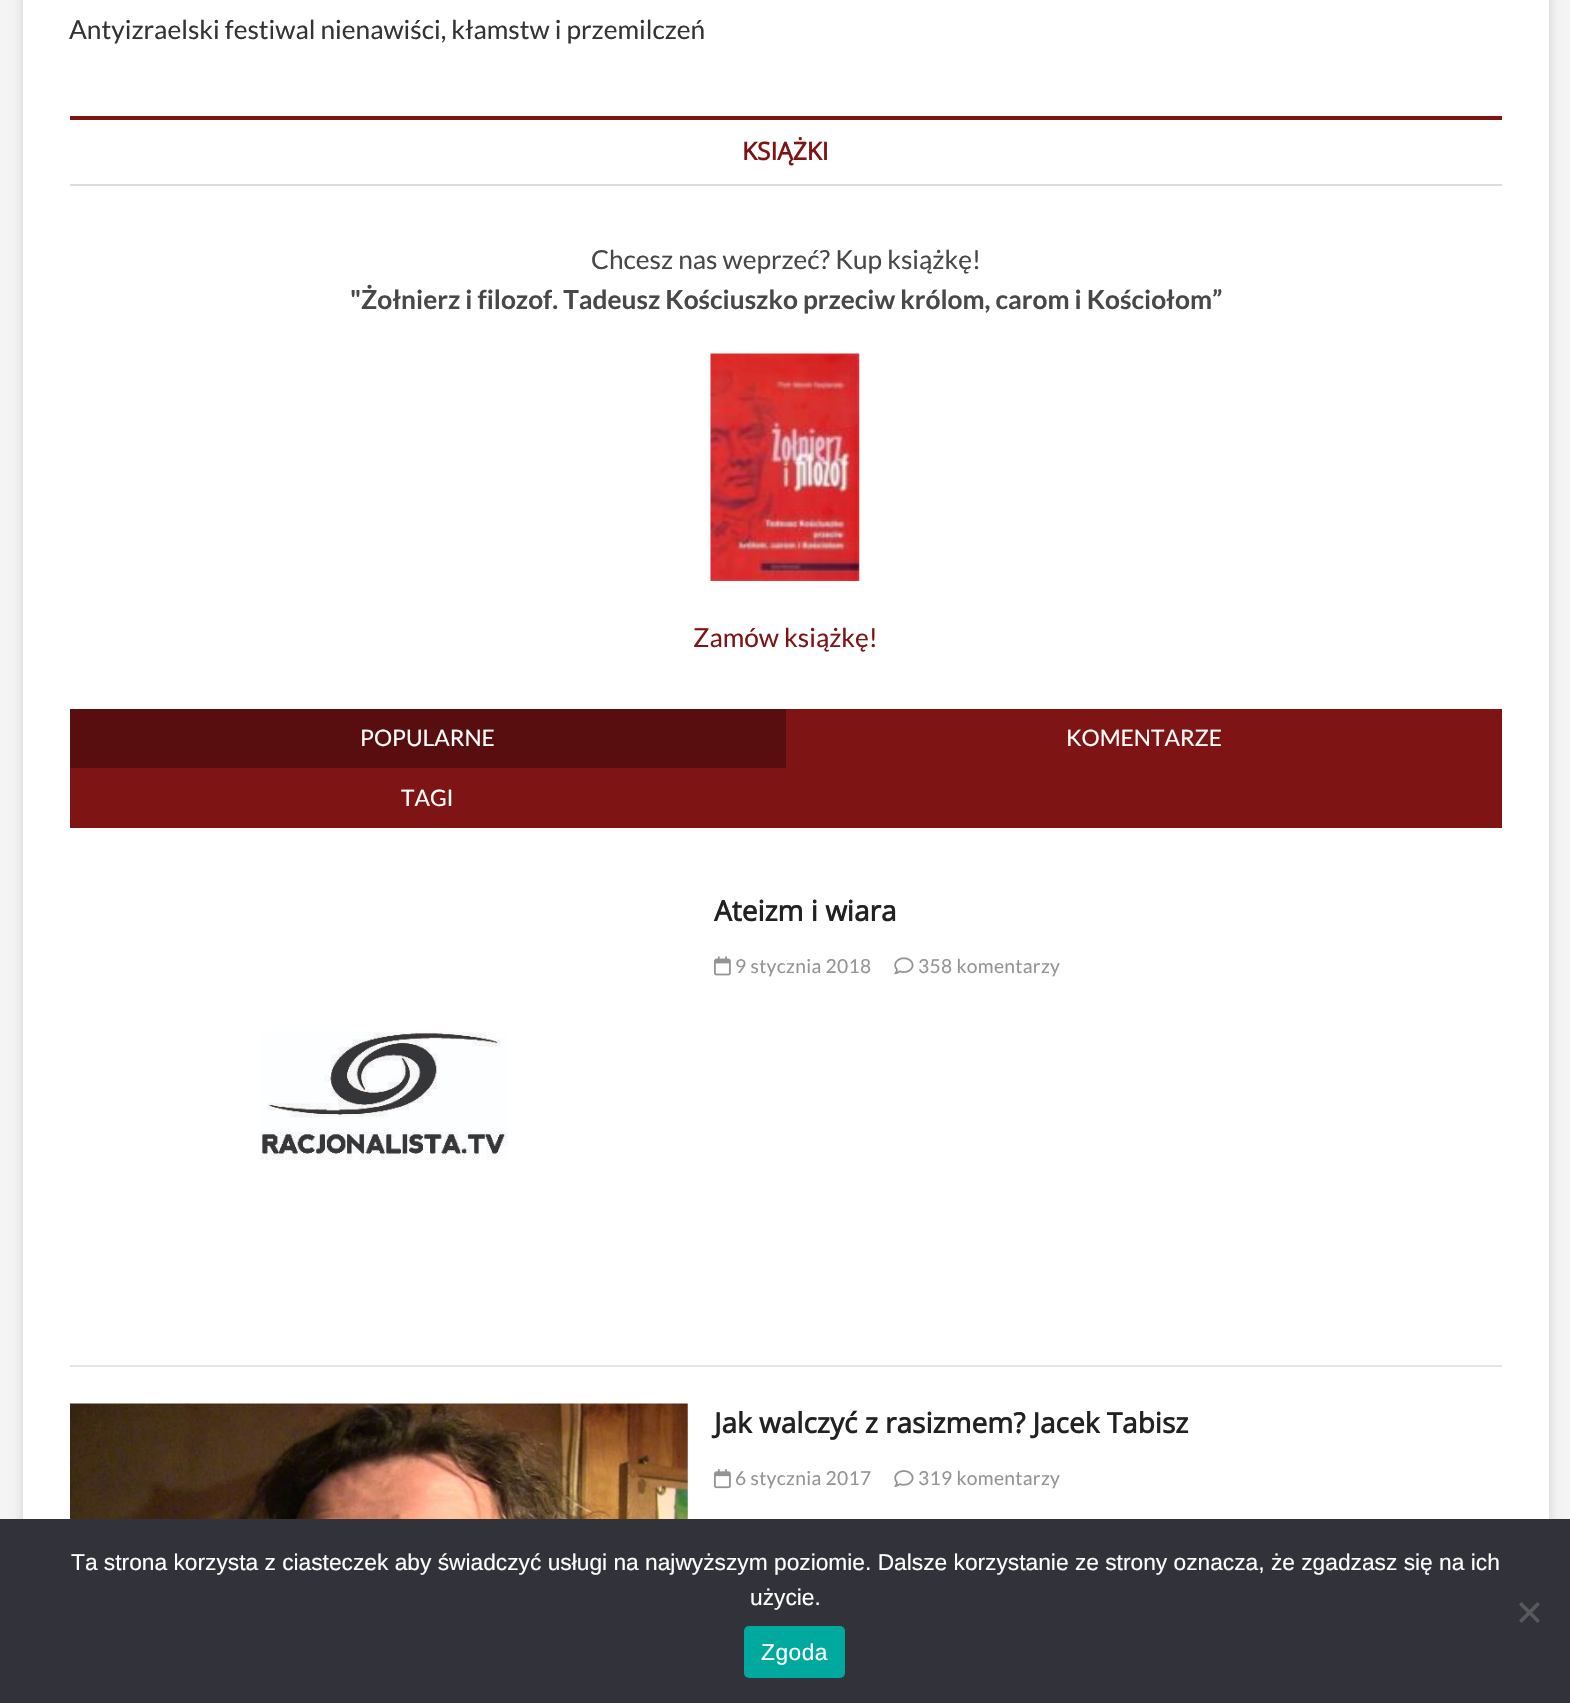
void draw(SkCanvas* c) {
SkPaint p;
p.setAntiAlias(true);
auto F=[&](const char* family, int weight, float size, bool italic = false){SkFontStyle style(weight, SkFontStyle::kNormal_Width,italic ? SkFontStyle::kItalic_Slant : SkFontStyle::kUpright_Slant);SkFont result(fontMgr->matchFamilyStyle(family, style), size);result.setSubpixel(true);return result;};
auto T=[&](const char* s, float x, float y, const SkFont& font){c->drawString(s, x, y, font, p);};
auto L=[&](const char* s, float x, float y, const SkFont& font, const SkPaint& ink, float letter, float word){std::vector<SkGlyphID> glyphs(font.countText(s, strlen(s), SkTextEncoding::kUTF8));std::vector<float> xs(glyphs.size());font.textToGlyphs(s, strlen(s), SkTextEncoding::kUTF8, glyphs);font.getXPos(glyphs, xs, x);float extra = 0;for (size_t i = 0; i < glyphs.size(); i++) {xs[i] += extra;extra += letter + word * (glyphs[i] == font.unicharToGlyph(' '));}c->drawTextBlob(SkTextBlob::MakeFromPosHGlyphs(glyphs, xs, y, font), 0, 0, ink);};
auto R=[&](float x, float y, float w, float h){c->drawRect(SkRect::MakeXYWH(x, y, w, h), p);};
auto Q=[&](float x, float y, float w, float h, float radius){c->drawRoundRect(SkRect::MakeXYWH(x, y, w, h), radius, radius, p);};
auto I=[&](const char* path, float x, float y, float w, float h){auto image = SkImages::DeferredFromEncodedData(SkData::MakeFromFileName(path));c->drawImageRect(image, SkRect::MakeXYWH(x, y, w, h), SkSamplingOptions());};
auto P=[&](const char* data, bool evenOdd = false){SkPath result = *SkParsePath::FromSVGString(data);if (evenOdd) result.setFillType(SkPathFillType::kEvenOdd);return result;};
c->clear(0xfff4f4f4);
p.setColor(0x26000000);
p.setMaskFilter(SkMaskFilter::MakeBlur(kNormal_SkBlurStyle, 5));
c->drawRect(SkRect::MakeXYWH(23,-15,1526,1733),p);
p.setMaskFilter(nullptr);
p.setColor(0xffffffff);
R(23,0,1526,1519);
auto f1 = F("Lato",400,26.25);
p.setColor(0xff343434);
T("Antyizraelski festiwal nienawiści, kłamstw i przemilczeń",69,39,f1);
p.setColor(0xff7e1414);
R(70,116,1432,4);
p.setColor(0xffdddddd);
R(70,184,1432,2);
auto f2 = F("Open Sans",700,24.5);
p.setColor(0xff7e1414);
T("KSIĄŻKI",742,160,f2);
p.setColor(0xff484848);
T("Chcesz nas weprzeć? Kup książkę!",591,269,f1);
auto f3 = F("Lato",700,26.25);
T("\"Żołnierz i filozof. Tadeusz Kościuszko przeciw królom, carom i Kościołom”",350,309,f3);
I("1.png",710,353,150,228);
p.setColor(0xff7e1414);
T("Zamów książkę!",693,647,f1);
R(70,709,1432,119);
p.setColor(0xff580e0e);
R(70,709,716,59);
auto f4 = F("Lato",400,22.75);
p.setColor(0xffffffff);
T("POPULARNE",360,746,f4);
T("KOMENTARZE",1066,746,f4);
T("TAGI",401,806,f4);
p.setColor(0xffe6e6e6);
R(70,1365,1432,2);
auto f5 = F("Open Sans",700,28);
p.setColor(0xff222222);
T("Ateizm i wiara",714,921,f5);
I("2.png",714,956,17,20);
auto f6 = F("Lato",400,19.25);
p.setColor(0xff949494);
L("9 stycznia 2018",735,973,f6,p,.3,0);
I("3.png",894,957,20,18);
L("358 komentarzy",918,973,f6,p,.3,0);
I("4.png",260,1032,248,128);
I("5.png",70,1403,618,116);
p.setColor(0xff222222);
T("Jak walczyć z rasizmem? Jacek Tabisz",714,1433,f5);
I("6.png",714,1469,17,20);
p.setColor(0xff949494);
L("6 stycznia 2017",735,1485,f6,p,.3,0);
I("7.png",894,1470,20,17);
L("319 komentarzy",918,1485,f6,p,.3,0);
p.setColor(0xff32323a);
R(0,1519,1570,184);
auto f7 = F("Liberation Sans",400,22.75);
p.setColor(0xffffffff);
T("Ta strona korzysta z ciasteczek aby świadczyć usługi na najwyższym poziomie. Dalsze korzystanie ze strony oznacza, że zgadzasz się na ich",71,1570,f7);
T("użycie.",750,1605,f7);
p.setColor(0xff59595d);
c->drawPath(P("M1537.5 1602l2.5 2.5l-18.5 18.5l-2.5-2.5z"),p);
c->drawPath(P("M1519 1604.5l2.5-2.5l18.5 18.5l-2.5 2.5z"),p);
p.setColor(0xff00a99d);
Q(744,1626,101,52,5);
p.setColor(0xffffffff);
L("Zgoda",761,1660,f7,p,.5,0);
}
